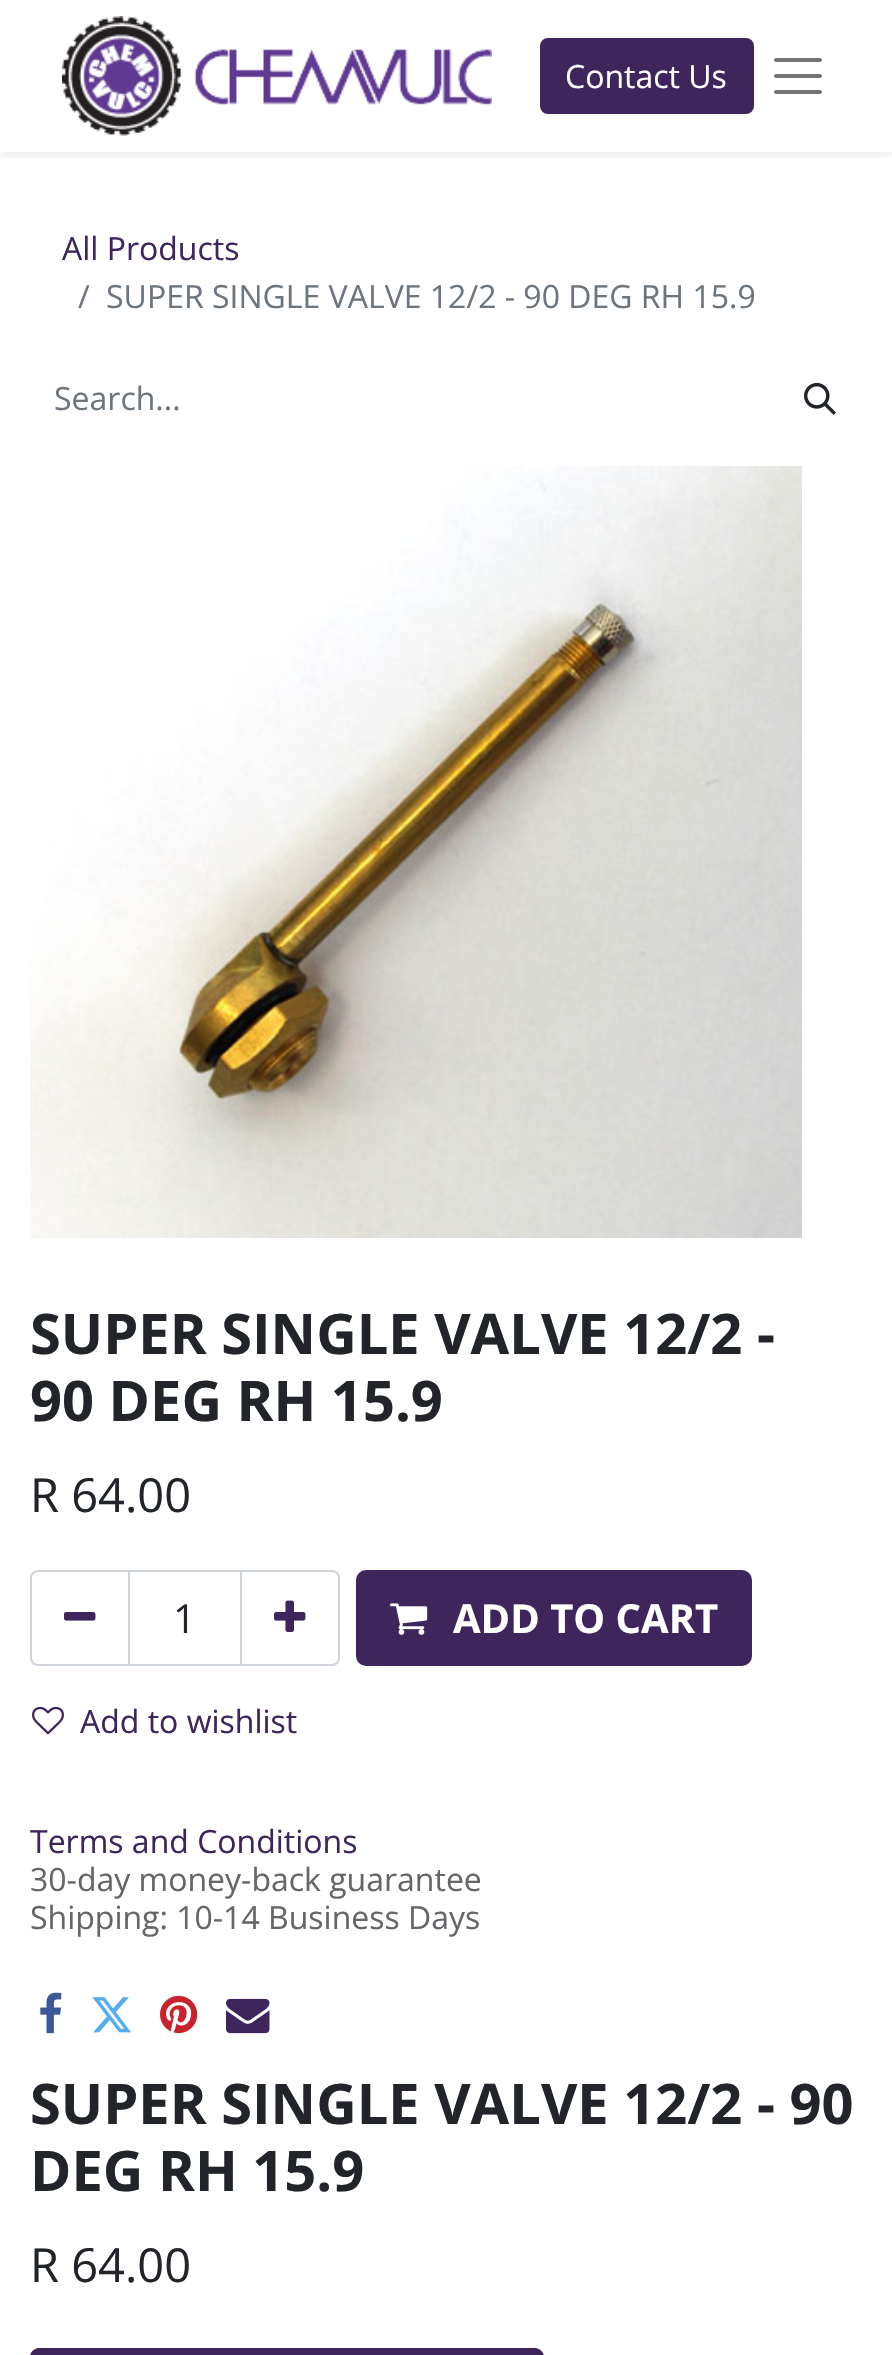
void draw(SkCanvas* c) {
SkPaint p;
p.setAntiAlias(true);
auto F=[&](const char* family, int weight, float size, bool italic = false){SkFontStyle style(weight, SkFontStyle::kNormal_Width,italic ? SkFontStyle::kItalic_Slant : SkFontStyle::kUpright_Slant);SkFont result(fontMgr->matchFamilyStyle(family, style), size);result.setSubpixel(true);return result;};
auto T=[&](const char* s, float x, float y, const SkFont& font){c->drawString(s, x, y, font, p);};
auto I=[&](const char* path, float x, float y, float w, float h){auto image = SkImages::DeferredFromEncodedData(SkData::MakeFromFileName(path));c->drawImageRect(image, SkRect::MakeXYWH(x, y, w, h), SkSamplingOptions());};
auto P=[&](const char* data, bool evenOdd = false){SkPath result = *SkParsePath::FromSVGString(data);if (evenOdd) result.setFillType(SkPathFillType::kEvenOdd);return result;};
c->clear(0xffffffff);
c->save();
c->clipRect(SkRect::MakeXYWH(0,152,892,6));
p.setColor(0x12000000);
p.setMaskFilter(SkMaskFilter::MakeBlur(kNormal_SkBlurStyle, 4));
c->drawRect(SkRect::MakeXYWH(0,4,892,152),p);
p.setMaskFilter(nullptr);
c->restore();
I("1.png",62,16,430,120);
p.setColor(0xff3e265d);
c->drawRoundRect(SkRect::MakeXYWH(541,39,212,74),7,7,p);
p.setStroke(true);
p.setStrokeWidth(2);
c->drawRoundRect(SkRect::MakeXYWH(541,39,212,74),7,7,p);
auto f1 = F("Open Sans",400,32);
p.setStroke(false);
p.setColor(0xffffffff);
T("Contact Us",565,88,f1);
p.setStroke(true);
p.setStrokeWidth(4);
p.setStrokeCap(SkPaint::kRound_Cap);
p.setColor(0xff737373);
c->drawPath(P("M776 60h44m-44 16h44m-44 16h44"),p);
p.setStroke(false);
p.setColor(0xff3e265d);
T("All Products",62,260,f1);
p.setColor(0xff6c757d);
T("/",78,308,f1);
T("SUPER SINGLE VALVE 12/2 - 90 DEG RH 15.9",106,308,f1);
T("Search...",54,410,f1);
I("2.png",804,382,32,33);
I("3.png",30,466,772,772);
auto f2 = F("Open Sans",700,56);
p.setColor(0xff212529);
T("SUPER SINGLE VALVE 12/2 -",30,1354,f2);
T("90 DEG RH 15.9",30,1421,f2);
auto f3 = F("Open Sans",400,47);
T("R 64.00",30,1512,f3);
p.setStroke(true);
p.setStrokeWidth(2);
p.setStrokeCap(SkPaint::kButt_Cap);
p.setColor(0xffced4da);
c->drawRect(SkRect::MakeXYWH(129,1571,112,94),p);
c->drawPath(P("M38 1571h91v94h-91c-4 0-7-3-7-7v-80c0-4 3-7 7-7z"),p);
I("4.png",64,1612,32,9);
auto f4 = F("Open Sans",400,40);
p.setStroke(false);
p.setColor(0xff212529);
T("1",173,1633,f4);
p.setStroke(true);
p.setColor(0xffced4da);
c->drawPath(P("M241 1571h91c4 0 7 3 7 7v80c0 4-3 7-7 7h-91z"),p);
I("5.png",274,1600,32,32);
p.setStroke(false);
p.setColor(0xff3e265d);
c->drawRoundRect(SkRect::MakeXYWH(357,1571,394,94),9,9,p);
p.setStroke(true);
c->drawRoundRect(SkRect::MakeXYWH(357,1571,394,94),9,9,p);
I("6.png",390,1603,38,32);
auto f5 = F("Open Sans",700,40);
p.setStroke(false);
p.setColor(0xffffffff);
T("ADD TO CART",453,1633,f5);
I("7.png",32,1706,32,29);
p.setColor(0xff3e265d);
T("Add to wishlist",80,1733,f1);
T("Terms and Conditions",30,1853,f1);
p.setColor(0xff646669);
T("30-day money-back guarantee",30,1891,f1);
T("Shipping: 10-14 Business Days",30,1929,f1);
I("8.png",40,1992,22,42);
I("9.png",92,1997,39,36);
I("10.png",160,1995,38,39);
I("11.png",226,1998,44,36);
p.setColor(0xff212529);
T("SUPER SINGLE VALVE 12/2 - 90",30,2124,f2);
T("DEG RH 15.9",30,2191,f2);
T("R 64.00",30,2282,f3);
p.setColor(0xff3e265d);
c->drawPath(P("M40 2348h494c5.5 0 10 4.5 10 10v-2h-514v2c0-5.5 4.5-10 10-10z"),p);
p.setStroke(true);
c->drawRoundRect(SkRect::MakeXYWH(31,2349,512,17),9,9,p);
}
